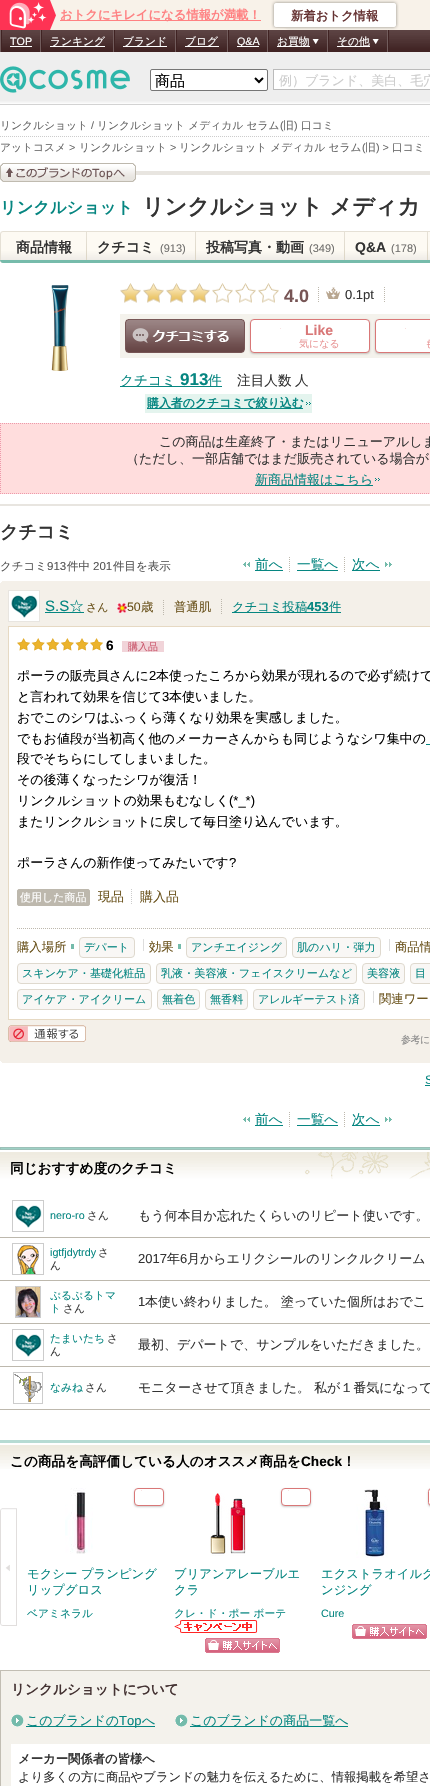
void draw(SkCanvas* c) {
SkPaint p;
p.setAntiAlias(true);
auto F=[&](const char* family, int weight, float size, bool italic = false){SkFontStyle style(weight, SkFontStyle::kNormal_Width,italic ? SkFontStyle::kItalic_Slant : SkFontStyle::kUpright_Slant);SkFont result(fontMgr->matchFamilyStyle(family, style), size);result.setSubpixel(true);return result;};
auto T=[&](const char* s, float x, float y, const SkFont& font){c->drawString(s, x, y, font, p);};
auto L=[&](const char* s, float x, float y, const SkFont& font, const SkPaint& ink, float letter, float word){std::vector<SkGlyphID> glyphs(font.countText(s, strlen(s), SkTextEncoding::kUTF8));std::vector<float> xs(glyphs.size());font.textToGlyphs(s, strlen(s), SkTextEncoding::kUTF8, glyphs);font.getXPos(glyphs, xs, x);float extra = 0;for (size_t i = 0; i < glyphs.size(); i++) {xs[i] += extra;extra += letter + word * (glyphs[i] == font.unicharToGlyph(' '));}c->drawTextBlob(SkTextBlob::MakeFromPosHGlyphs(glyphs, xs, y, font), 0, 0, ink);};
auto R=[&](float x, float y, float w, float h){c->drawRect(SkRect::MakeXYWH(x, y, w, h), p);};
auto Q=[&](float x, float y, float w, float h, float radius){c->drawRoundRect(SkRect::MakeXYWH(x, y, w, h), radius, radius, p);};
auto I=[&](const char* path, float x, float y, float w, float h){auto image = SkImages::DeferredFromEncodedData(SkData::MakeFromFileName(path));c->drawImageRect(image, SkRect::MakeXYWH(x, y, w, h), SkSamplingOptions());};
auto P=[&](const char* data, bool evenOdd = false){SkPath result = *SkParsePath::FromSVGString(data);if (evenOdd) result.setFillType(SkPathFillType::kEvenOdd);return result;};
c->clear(0xffffffff);
p.setColor(0xfff8f2e9);
R(50,0,380,30);
I("1.png",0,0,56,30);
p.setColor(0xffff8182);
R(60,20,201,1);
auto f1 = F("WenQuanYi Zen Hei",700,12.35);
T("おトクにキレイになる情報が満載！",60,19,f1);
I("2.png",271,0,128,30);
p.setColor(0xff663333);
T("新着おトク情報",291,20,f1);
I("3.png",0,30,430,75);
p.setColor(0xff402323);
R(388,30,1,22);
p.setColor(0xff725d5d);
R(0,30,1,22);
R(40,30,1,22);
p.setColor(0xff402323);
R(1,30,1,22);
auto f2 = F("Liberation Sans",400,10.75);
p.setColor(0xffffffff);
T("TOP",10,45,f2);
R(10,46,22,1);
p.setColor(0xff725d5d);
R(113,30,1,22);
p.setColor(0xff402323);
R(41,30,1,22);
p.setColor(0xffffffff);
R(50,46,55,1);
auto f3 = F("WenQuanYi Zen Hei",500,10.75);
T("ランキング",50,45,f3);
p.setColor(0xff725d5d);
R(175,30,1,22);
p.setColor(0xff402323);
R(114,30,1,22);
p.setColor(0xffffffff);
R(123,46,44,1);
T("ブランド",123,45,f3);
p.setColor(0xff725d5d);
R(227,30,1,22);
p.setColor(0xff402323);
R(176,30,1,22);
p.setColor(0xffffffff);
R(185,46,34,1);
T("ブログ",185,45,f3);
p.setColor(0xff725d5d);
R(267,30,1,22);
p.setColor(0xff402323);
R(228,30,1,22);
p.setColor(0xffffffff);
R(237,46,22,1);
T("Q&A",237,45,f2);
p.setColor(0xff725d5d);
R(327,30,1,22);
p.setColor(0xff402323);
R(268,30,1,22);
p.setColor(0xffffffff);
R(277,46,33,1);
T("お買物",277,45,f3);
I("4.png",312,39,7,5);
p.setColor(0xff725d5d);
R(387,30,1,22);
p.setColor(0xff402323);
R(328,30,1,22);
p.setColor(0xffffffff);
R(337,46,33,1);
T("その他",337,45,f3);
I("4.png",372,39,7,5);
I("5.png",0,66,130,27);
c->drawRoundRect(SkRect::MakeXYWH(150.5,69.5,117,21),1.5,1.5,p);
p.setStroke(true);
p.setStrokeWidth(1);
p.setColor(0xff767676);
c->drawRoundRect(SkRect::MakeXYWH(150.5,69.5,117,21),1.5,1.5,p);
p.setStrokeWidth(2);
p.setColor(0xff000000);
c->drawPath(P("M255 78l4 4l4-4"),p);
auto f4 = F("WenQuanYi Zen Hei",500,15);
p.setStroke(false);
T("商品",155,86,f4);
p.setColor(0xffffffff);
c->drawRect(SkRect::MakeXYWH(273.5,69.5,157,20),p);
p.setStroke(true);
p.setStrokeWidth(1);
p.setColor(0xffbbbbbb);
c->drawRect(SkRect::MakeXYWH(273.5,69.5,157,20),p);
auto f5 = F("WenQuanYi Zen Hei",500,13);
p.setStroke(false);
p.setColor(0xffcccccc);
T("例）ブランド、美白、毛穴",279,85,f5);
p.setStroke(true);
p.setPathEffect(SkDashPathEffect::Make({{1,1}}, 0));
c->drawPath(P("M0 136.5h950"),p);
p.setPathEffect(nullptr);
p.setStroke(false);
p.setColor(0xff666666);
T("リンクルショット",0,129,f3);
T("/",91,129,f2);
T("リンクルショット メディカル セラム",97,129,f3);
T("(",280,129,f2);
T("旧",283,129,f3);
T(")",294,129,f2);
T("口コミ",301,129,f3);
T("アットコスメ",0,151,f3);
T(">",69,151,f2);
T("リンクルショット",79,151,f3);
T(">",170,151,f2);
T("リンクルショット メディカル セラム",179,151,f3);
T("(",362,151,f2);
T("旧",365,151,f3);
T(") >",376,151,f2);
T("口コミ",392,151,f3);
p.setColor(0xffe8e5e0);
R(136,171,294,4);
I("6.png",0,163,136,19);
auto f6 = F("WenQuanYi Zen Hei",700,16.25);
p.setColor(0xff068681);
T("リンクルショット",0,213,f6);
auto f7 = F("WenQuanYi Zen Hei",700,22.1);
p.setColor(0xff333333);
T("リンクルショット メディカ",142,214,f7);
{
const SkColor colors[] = {0xfffdfaf3,0xfffdfaf3,0xffefece7};
const float stops[] = {0,.6,.9};
const SkPoint ends[] = {{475,231}, {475,263}};
p.setShader(SkGradientShader::MakeLinear(ends, colors, stops, 3, SkTileMode::kClamp));
p.setAlpha(255);
}
Q(0,231,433,32,3);
p.setStroke(true);
p.setShader(nullptr);
p.setColor(0xffe5e0d5);
c->drawRoundRect(SkRect::MakeXYWH(.5,231.5,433,31),2.5,2.5,p);
auto f8 = F("WenQuanYi Zen Hei",700,14);
p.setStroke(false);
p.setColor(0xff333333);
T("商品情報",16,252,f8);
{
const SkColor colors[] = {0xffe5e0d5,0xffded7c7};
const float stops[] = {.15,.85};
const SkPoint ends[] = {{87,232}, {87,260}};
p.setShader(SkGradientShader::MakeLinear(ends, colors, stops, 2, SkTileMode::kClamp));
p.setAlpha(255);
}
R(86,232,1,28);
p.setShader(nullptr);
p.setColor(0xff333333);
T("クチコミ",97,252,f8);
auto f9 = F("Liberation Sans",400,11);
p.setColor(0xff6f6e6c);
T("(913)",160,252,f9);
{
const SkColor colors[] = {0xffe5e0d5,0xffded7c7};
const float stops[] = {.15,.85};
const SkPoint ends[] = {{196,232}, {196,260}};
p.setShader(SkGradientShader::MakeLinear(ends, colors, stops, 2, SkTileMode::kClamp));
p.setAlpha(255);
}
R(195,232,1,28);
p.setShader(nullptr);
p.setColor(0xff333333);
T("投稿写真・動画",206,252,f8);
p.setColor(0xff6f6e6c);
T("(349)",309,252,f9);
{
const SkColor colors[] = {0xffe5e0d5,0xffded7c7};
const float stops[] = {.15,.85};
const SkPoint ends[] = {{345,232}, {345,260}};
p.setShader(SkGradientShader::MakeLinear(ends, colors, stops, 2, SkTileMode::kClamp));
p.setAlpha(255);
}
R(344,232,1,28);
auto f10 = F("Liberation Sans",700,14);
p.setShader(nullptr);
p.setColor(0xff333333);
T("Q&A",355,252,f10);
p.setColor(0xff6f6e6c);
T("(178)",391,252,f9);
{
const SkColor colors[] = {0xffe5e0d5,0xffded7c7};
const float stops[] = {.15,.85};
const SkPoint ends[] = {{428,232}, {428,260}};
p.setShader(SkGradientShader::MakeLinear(ends, colors, stops, 2, SkTileMode::kClamp));
p.setAlpha(255);
}
R(427,232,1,28);
p.setShader(nullptr);
p.setColor(0xff76bbab);
c->drawPath(P("M0 260h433c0 1.5-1.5 3-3 3h-427c-1.5 0-3-1.5-3-3z"),p);
I("7.png",51,285,18,86);
I("8.png",120,283,159,20);
auto f11 = F("Liberation Sans",700,18);
p.setColor(0xff775555);
T("4.0",284,302,f11);
I("9.png",326,287,14,12);
p.setStroke(true);
p.setColor(0xffbdb8ad);
p.setPathEffect(SkDashPathEffect::Make({{1,1}}, 0));
c->drawPath(P("M384.5 287v16"),p);
p.setPathEffect(nullptr);
p.setPathEffect(SkDashPathEffect::Make({{1,1}}, 0));
c->drawPath(P("M318.5 287v16"),p);
p.setPathEffect(nullptr);
auto f12 = F("Liberation Sans",400,13);
p.setStroke(false);
p.setColor(0xff333333);
T("0.1pt",345,299,f12);
p.setColor(0xfff4f2ec);
R(120,314,310,44);
I("10.png",125,319,120,34);
p.setColor(0x33000000);
p.setMaskFilter(SkMaskFilter::MakeBlur(kNormal_SkBlurStyle, 1));
c->drawRoundRect(SkRect::MakeXYWH(250,320,120,34),4,4,p);
p.setMaskFilter(nullptr);
p.setColor(0xffffffff);
c->drawRoundRect(SkRect::MakeXYWH(250.5,319.5,119,33),3.5,3.5,p);
p.setStroke(true);
p.setColor(0xffd97777);
c->drawRoundRect(SkRect::MakeXYWH(250.5,319.5,119,33),3.5,3.5,p);
p.setStroke(false);
p.setColor(0xfff7e4e4);
R(280,328,1,1);
p.setColor(0xffd97777);
T("Like",305,335,f10);
auto f13 = F("WenQuanYi Zen Hei",500,10);
p.setColor(0xffe99999);
T("気になる",299,347,f13);
p.setColor(0x33000000);
p.setMaskFilter(SkMaskFilter::MakeBlur(kNormal_SkBlurStyle, 1));
c->drawRoundRect(SkRect::MakeXYWH(375,320,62,34),4,4,p);
p.setMaskFilter(nullptr);
p.setColor(0xffffffff);
c->drawRoundRect(SkRect::MakeXYWH(375.5,319.5,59,33),3.5,3.5,p);
p.setStroke(true);
p.setColor(0xffd97777);
c->drawRoundRect(SkRect::MakeXYWH(375.5,319.5,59,33),3.5,3.5,p);
p.setStroke(false);
p.setColor(0xfff6dede);
R(405,328,1,1);
p.setColor(0xffe99999);
T("も",425,347,f13);
p.setColor(0xff068681);
R(120,386,102,1);
auto f14 = F("WenQuanYi Zen Hei",500,13.65);
T("クチコミ",120,385,f14);
auto f15 = F("Liberation Sans",700,17);
T("913",180,385,f15);
T("件",208,385,f14);
p.setColor(0xff333333);
T("注目人数",237,385,f14);
T("人",295,385,f14);
p.setColor(0xffe4f4ee);
R(145,394,167,19);
I("11.png",306,402,5,3);
p.setColor(0xff068681);
R(147,408,156,1);
auto f16 = F("WenQuanYi Zen Hei",700,11.9);
T("購入者のクチコミで絞り込む",147,407,f16);
p.setColor(0xffffdddd);
R(0,423,430,71);
p.setStroke(true);
p.setColor(0xffee99aa);
p.setPathEffect(SkDashPathEffect::Make({{1,1}}, 0));
c->drawPath(P("M0 423.5h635"),p);
p.setPathEffect(nullptr);
p.setPathEffect(SkDashPathEffect::Make({{1,1}}, 0));
c->drawPath(P("M0 493.5h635"),p);
p.setPathEffect(nullptr);
p.setPathEffect(SkDashPathEffect::Make({{1,1}}, 0));
c->drawPath(P("M.5 423v71"),p);
p.setPathEffect(nullptr);
p.setStroke(false);
p.setColor(0xff333333);
T("この商品は生産終了・またはリニューアルしま",159,446,f5);
T("（ただし、一部店舗ではまだ販売されている場合が",126,463,f5);
p.setColor(0xff068681);
R(255,485,118,1);
T("新商品情報はこちら",255,484,f5);
I("12.png",375,478,5,3);
p.setColor(0xffe8e5e0);
R(0,504,430,2);
auto f17 = F("WenQuanYi Zen Hei",700,18);
p.setColor(0xff333333);
T("クチコミ",0,538,f17);
auto f18 = F("WenQuanYi Zen Hei",500,11.5);
p.setColor(0xff555555);
T("クチコミ",0,570,f18);
auto f19 = F("Liberation Sans",400,11.5);
T("913",47,570,f19);
T("件中",67,570,f18);
T("201",93,570,f19);
T("件目を表示",113,570,f18);
I("13.png",243,562,7,5);
p.setColor(0xff068681);
R(255,570,28,1);
T("前へ",255,569,f14);
R(297,570,41,1);
T("一覧へ",297,569,f14);
p.setStroke(true);
p.setColor(0xffbdb8ad);
p.setPathEffect(SkDashPathEffect::Make({{1,1}}, 0));
c->drawPath(P("M289.5 557v15"),p);
p.setPathEffect(nullptr);
p.setStroke(false);
p.setColor(0xff068681);
R(352,570,28,1);
T("次へ",352,569,f14);
p.setStroke(true);
p.setColor(0xffbdb8ad);
p.setPathEffect(SkDashPathEffect::Make({{1,1}}, 0));
c->drawPath(P("M344.5 557v15"),p);
p.setPathEffect(nullptr);
I("14.png",385,562,7,5);
p.setStroke(false);
p.setColor(0xfff4f0e9);
R(0,581,430,482);
I("15.png",0,581,2,2);
I("16.png",0,1061,2,2);
p.setStroke(true);
p.setColor(0xffe8e5e0);
c->drawRect(SkRect::MakeXYWH(8.5,590.5,31,31),p);
I("17.png",9,591,30,30);
auto f20 = F("Liberation Sans",400,15);
p.setStroke(false);
p.setColor(0xff068681);
T("S.S",45,611,f20);
R(45,612,39,1);
T("☆",69,611,f4);
auto f21 = F("WenQuanYi Zen Hei",500,11);
p.setColor(0xff69511a);
T("さん",86,611,f21);
I("18.png",117,603,10,10);
auto f22 = F("Liberation Sans",400,12.35);
T("50",127,611,f22);
auto f23 = F("WenQuanYi Zen Hei",500,12.35);
T("歳",141,611,f23);
p.setStroke(true);
p.setColor(0xffbdb8ad);
p.setPathEffect(SkDashPathEffect::Make({{1,1}}, 0));
c->drawPath(P("M163.5 600v15"),p);
p.setPathEffect(nullptr);
p.setStroke(false);
p.setColor(0xff69511a);
T("普通肌",174,611,f23);
p.setStroke(true);
p.setColor(0xffbdb8ad);
p.setPathEffect(SkDashPathEffect::Make({{1,1}}, 0));
c->drawPath(P("M221.5 599v16"),p);
p.setPathEffect(nullptr);
p.setStroke(false);
p.setColor(0xff068681);
R(232,612,109,1);
T("クチコミ投稿",232,611,f23);
auto f24 = F("Liberation Sans",700,13);
T("453",307,611,f24);
T("件",329,611,f23);
p.setColor(0xffffffff);
c->drawRect(SkRect::MakeXYWH(8.5,626.5,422,393),p);
p.setStroke(true);
p.setColor(0xffe6d9c3);
c->drawRect(SkRect::MakeXYWH(8.5,626.5,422,393),p);
I("19.png",17,638,87,13);
auto f25 = F("Liberation Sans",700,13.65);
p.setStroke(false);
p.setColor(0xff000000);
T("6",106,650,f25);
p.setColor(0xfff1d4d9);
R(122,641,42,11);
p.setColor(0xffca576c);
T("購入品",128,650,f13);
p.setColor(0xff000000);
T("ポーラの販売員さんに",17,680,f5);
T("2",149,680,f12);
T("本使ったころから効果が現れるので必ず続けて",156,680,f5);
T("と言われて効果を信じて",17,701,f5);
T("3",162,701,f12);
T("本使いました。",169,701,f5);
T("おでこのシワはふっくら薄くなり効果を実感しました。",17,722,f5);
T("でもお値段が当初高く他のメーカーさんからも同じようなシワ集中の",17,743,f5);
p.setColor(0xff068681);
R(426,744,4,1);
p.setColor(0xff000000);
T("段でそちらにしてしまいました。",17,763,f5);
T("その後薄くなったシワが復活！",17,784,f5);
T("リンクルショットの効果もむなしく",17,805,f5);
T("(*_*)",229,805,f12);
T("またリンクルショットに戻して毎日塗り込んでいます。",17,826,f5);
T("ポーラさんの新作使ってみたいです",17,867,f5);
T("?",229,867,f12);
p.setColor(0xffbdb8ad);
c->drawRoundRect(SkRect::MakeXYWH(17.5,889.5,72,16),1.5,1.5,p);
p.setStroke(true);
c->drawRoundRect(SkRect::MakeXYWH(17.5,889.5,72,16),1.5,1.5,p);
p.setStroke(false);
p.setColor(0xffffffff);
T("使用した商品",20,901,f21);
p.setColor(0xff69511a);
T("現品",98,901,f5);
p.setStroke(true);
p.setColor(0xffcccccc);
p.setPathEffect(SkDashPathEffect::Make({{1,1}}, 0));
c->drawPath(P("M131.5 889v16"),p);
p.setPathEffect(nullptr);
p.setStroke(false);
p.setColor(0xff69511a);
T("購入品",140,901,f5);
p.setStroke(true);
p.setColor(0xffbdb8ad);
p.setPathEffect(SkDashPathEffect::Make({{1,1}}, 0));
c->drawPath(P("M17 928.5h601"),p);
p.setPathEffect(nullptr);
p.setStroke(false);
p.setColor(0xff74bbab);
R(71,944,3,5);
p.setColor(0xff69511a);
T("購入場所",17,951,f23);
p.setColor(0xfff9f7f5);
c->drawRoundRect(SkRect::MakeXYWH(79.5,937.5,55,20),3.5,3.5,p);
p.setStroke(true);
p.setColor(0xffdfd9ce);
c->drawRoundRect(SkRect::MakeXYWH(79.5,937.5,55,20),3.5,3.5,p);
auto f26 = F("WenQuanYi Zen Hei",500,11.1);
p.setStroke(false);
p.setColor(0xff068681);
T("デパート",84,951,f26);
p.setColor(0xff74bbab);
R(178,944,3,5);
p.setColor(0xffdddddd);
R(143,939,1,12);
p.setColor(0xff69511a);
T("効果",149,951,f23);
p.setColor(0xfff9f7f5);
c->drawRoundRect(SkRect::MakeXYWH(186.5,937.5,100,20),3.5,3.5,p);
p.setStroke(true);
p.setColor(0xffdfd9ce);
c->drawRoundRect(SkRect::MakeXYWH(186.5,937.5,100,20),3.5,3.5,p);
p.setStroke(false);
p.setColor(0xff068681);
T("アンチエイジング",191,951,f26);
p.setColor(0xfff9f7f5);
c->drawRoundRect(SkRect::MakeXYWH(292.5,937.5,88,20),3.5,3.5,p);
p.setStroke(true);
p.setColor(0xffdfd9ce);
c->drawRoundRect(SkRect::MakeXYWH(292.5,937.5,88,20),3.5,3.5,p);
p.setStroke(false);
p.setColor(0xff068681);
T("肌のハリ・弾力",297,951,f26);
p.setColor(0xffdddddd);
R(389,939,1,12);
p.setColor(0xff69511a);
T("商品情",395,951,f23);
p.setColor(0xfff9f7f5);
c->drawRoundRect(SkRect::MakeXYWH(17.5,963.5,133,20),3.5,3.5,p);
p.setStroke(true);
p.setColor(0xffdfd9ce);
c->drawRoundRect(SkRect::MakeXYWH(17.5,963.5,133,20),3.5,3.5,p);
p.setStroke(false);
p.setColor(0xff068681);
T("スキンケア・基礎化粧品",22,977,f26);
p.setColor(0xfff9f7f5);
c->drawRoundRect(SkRect::MakeXYWH(156.5,963.5,200,20),3.5,3.5,p);
p.setStroke(true);
p.setColor(0xffdfd9ce);
c->drawRoundRect(SkRect::MakeXYWH(156.5,963.5,200,20),3.5,3.5,p);
p.setStroke(false);
p.setColor(0xff068681);
T("乳液・美容液・フェイスクリームなど",161,977,f26);
p.setColor(0xfff9f7f5);
c->drawRoundRect(SkRect::MakeXYWH(362.5,963.5,42,20),3.5,3.5,p);
p.setStroke(true);
p.setColor(0xffdfd9ce);
c->drawRoundRect(SkRect::MakeXYWH(362.5,963.5,42,20),3.5,3.5,p);
p.setStroke(false);
p.setColor(0xff068681);
T("美容液",367,977,f26);
p.setColor(0xfff9f7f5);
c->drawRoundRect(SkRect::MakeXYWH(410.5,963.5,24,20),3.5,3.5,p);
p.setStroke(true);
p.setColor(0xffdfd9ce);
c->drawRoundRect(SkRect::MakeXYWH(410.5,963.5,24,20),3.5,3.5,p);
p.setStroke(false);
p.setColor(0xff068681);
T("目",415,977,f26);
p.setColor(0xfff9f7f5);
c->drawRoundRect(SkRect::MakeXYWH(17.5,989.5,134,20),3.5,3.5,p);
p.setStroke(true);
p.setColor(0xffdfd9ce);
c->drawRoundRect(SkRect::MakeXYWH(17.5,989.5,134,20),3.5,3.5,p);
p.setStroke(false);
p.setColor(0xff068681);
T("アイケア・アイクリーム",22,1003,f26);
p.setColor(0xfff9f7f5);
c->drawRoundRect(SkRect::MakeXYWH(157.5,989.5,42,20),3.5,3.5,p);
p.setStroke(true);
p.setColor(0xffdfd9ce);
c->drawRoundRect(SkRect::MakeXYWH(157.5,989.5,42,20),3.5,3.5,p);
p.setStroke(false);
p.setColor(0xff068681);
T("無着色",162,1003,f26);
p.setColor(0xfff9f7f5);
c->drawRoundRect(SkRect::MakeXYWH(205.5,989.5,42,20),3.5,3.5,p);
p.setStroke(true);
p.setColor(0xffdfd9ce);
c->drawRoundRect(SkRect::MakeXYWH(205.5,989.5,42,20),3.5,3.5,p);
p.setStroke(false);
p.setColor(0xff068681);
T("無香料",210,1003,f26);
p.setColor(0xfff9f7f5);
c->drawRoundRect(SkRect::MakeXYWH(253.5,989.5,111,20),3.5,3.5,p);
p.setStroke(true);
p.setColor(0xffdfd9ce);
c->drawRoundRect(SkRect::MakeXYWH(253.5,989.5,111,20),3.5,3.5,p);
p.setStroke(false);
p.setColor(0xff068681);
T("アレルギーテスト済",258,1003,f26);
p.setColor(0xffdddddd);
R(373,991,1,12);
p.setColor(0xff69511a);
T("関連ワー",379,1003,f23);
I("20.png",8,1025,78,17);
p.setColor(0xff888888);
L("参考に",401,1043,f13,p,-.5,0);
p.setColor(0xff068681);
T("S",425,1084,f22);
R(425,1085,5,1);
I("13.png",243,1117,7,5);
R(255,1125,28,1);
T("前へ",255,1124,f14);
R(297,1125,41,1);
T("一覧へ",297,1124,f14);
p.setStroke(true);
p.setColor(0xffbdb8ad);
p.setPathEffect(SkDashPathEffect::Make({{1,1}}, 0));
c->drawPath(P("M289.5 1112v15"),p);
p.setPathEffect(nullptr);
p.setStroke(false);
p.setColor(0xff068681);
R(352,1125,28,1);
T("次へ",352,1124,f14);
p.setStroke(true);
p.setColor(0xffbdb8ad);
p.setPathEffect(SkDashPathEffect::Make({{1,1}}, 0));
c->drawPath(P("M344.5 1112v15"),p);
p.setPathEffect(nullptr);
I("14.png",385,1117,7,5);
I("21.png",0,1147,430,32);
auto f27 = F("WenQuanYi Zen Hei",700,13.65);
p.setStroke(false);
p.setColor(0xff000000);
T("同じおすすめ度のクチコミ",10,1173,f27);
p.setStroke(true);
p.setColor(0xffcccccc);
c->drawRect(SkRect::MakeXYWH(12.5,1200.5,31,31),p);
I("22.png",15,1205,27,23);
p.setStroke(false);
p.setColor(0xff068681);
T("nero-ro",50,1219,f2);
p.setColor(0xff333333);
T("さん",87,1219,f3);
p.setColor(0xffbdb8ad);
R(0,1237,430,1);
p.setColor(0xff333333);
T("もう何本目か忘れたくらいのリピート使いです。",138,1220,f5);
p.setStroke(true);
p.setColor(0xffcccccc);
c->drawRect(SkRect::MakeXYWH(12.5,1243.5,31,31),p);
I("23.png",17,1245,22,29);
p.setStroke(false);
p.setColor(0xff068681);
T("igtfjdytrdy",50,1256,f2);
p.setColor(0xff333333);
T("さ",98,1256,f3);
T("ん",50,1269,f3);
p.setColor(0xffbdb8ad);
R(0,1280,430,1);
p.setColor(0xff333333);
T("2017",138,1263,f12);
T("年",167,1263,f5);
T("6",180,1263,f12);
T("月からエリクシールのリンクルクリーム",187,1263,f5);
p.setStroke(true);
p.setColor(0xffcccccc);
c->drawRect(SkRect::MakeXYWH(15.5,1286.5,25,31),p);
I("24.png",16,1287,24,30);
p.setStroke(false);
p.setColor(0xff068681);
T("ぷるぷるトマ",50,1299,f3);
T("ト",50,1312,f3);
p.setColor(0xff333333);
T("さん",63,1312,f3);
p.setColor(0xffbdb8ad);
R(0,1323,430,1);
p.setColor(0xff333333);
T("1",138,1306,f12);
T("本使い終わりました。 塗っていた個所はおでこ",145,1306,f5);
p.setStroke(true);
p.setColor(0xffcccccc);
c->drawRect(SkRect::MakeXYWH(12.5,1329.5,31,31),p);
I("22.png",15,1334,27,23);
p.setStroke(false);
p.setColor(0xff068681);
T("たまいたち",50,1342,f3);
p.setColor(0xff333333);
T("さ",107,1342,f3);
T("ん",50,1355,f3);
p.setColor(0xffbdb8ad);
R(0,1366,430,1);
p.setColor(0xff333333);
T("最初、デパートで、サンプルをいただきました。",138,1349,f5);
p.setStroke(true);
p.setColor(0xffcccccc);
c->drawRect(SkRect::MakeXYWH(13.5,1372.5,29,31),p);
I("25.png",14,1374,28,28);
p.setStroke(false);
p.setColor(0xff068681);
T("なみね",50,1391,f3);
p.setColor(0xff333333);
T("さん",85,1391,f3);
p.setColor(0xffbdb8ad);
R(0,1409,430,1);
p.setColor(0xff333333);
T("モニターさせて頂きました。 私が１番気になって",138,1392,f5);
I("26.png",0,1440,430,29);
p.setColor(0xff000000);
T("この商品を高評価している人のオススメ商品を",10,1466,f27);
T("Check",301,1466,f25);
T("！",342,1466,f27);
I("27.png",0,1508,17,118);
p.setColor(0x33000000);
p.setMaskFilter(SkMaskFilter::MakeBlur(kNormal_SkBlurStyle, 1));
c->drawRoundRect(SkRect::MakeXYWH(134,1489,30,18),4,4,p);
p.setMaskFilter(nullptr);
p.setColor(0xffffffff);
c->drawRoundRect(SkRect::MakeXYWH(134.5,1488.5,29,17),3.5,3.5,p);
p.setStroke(true);
p.setColor(0xffd97777);
c->drawRoundRect(SkRect::MakeXYWH(134.5,1488.5,29,17),3.5,3.5,p);
p.setStroke(false);
p.setColor(0xfff7e4e4);
R(141,1490,1,1);
I("28.png",65,1488,28,66);
p.setColor(0xff068681);
T("モクシー プランピング",27,1578,f23);
T("リップグロス",27,1594,f23);
T("ベアミネラル",27,1617,f3);
p.setColor(0x33000000);
p.setMaskFilter(SkMaskFilter::MakeBlur(kNormal_SkBlurStyle, 1));
c->drawRoundRect(SkRect::MakeXYWH(281,1489,30,18),4,4,p);
p.setMaskFilter(nullptr);
p.setColor(0xffffffff);
c->drawRoundRect(SkRect::MakeXYWH(281.5,1488.5,29,17),3.5,3.5,p);
p.setStroke(true);
p.setColor(0xffd97777);
c->drawRoundRect(SkRect::MakeXYWH(281.5,1488.5,29,17),3.5,3.5,p);
p.setStroke(false);
p.setColor(0xfff7e4e4);
R(288,1490,1,1);
I("29.png",210,1493,36,63);
p.setColor(0xff068681);
T("ブリアンアレーブルエ",174,1578,f23);
T("クラ",174,1594,f23);
T("クレ・ド・ポー ボーテ",174,1617,f3);
I("30.png",174,1620,84,13);
I("31.png",205,1638,75,15);
p.setColor(0x33000000);
p.setMaskFilter(SkMaskFilter::MakeBlur(kNormal_SkBlurStyle, 1));
c->drawRoundRect(SkRect::MakeXYWH(428,1489,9,18),4,4,p);
p.setMaskFilter(nullptr);
p.setColor(0xffffffff);
c->drawRoundRect(SkRect::MakeXYWH(428.5,1488.5,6,17),3.5,3.5,p);
p.setStroke(true);
p.setColor(0xffd97777);
c->drawRoundRect(SkRect::MakeXYWH(428.5,1488.5,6,17),3.5,3.5,p);
I("32.png",356,1489,32,69);
p.setStroke(false);
p.setColor(0xff068681);
T("エクストラオイルク",321,1578,f23);
T("ンジング",321,1594,f23);
T("Cure",321,1617,f2);
I("31.png",352,1624,75,15);
p.setColor(0xfff4f2ec);
c->drawRect(SkRect::MakeXYWH(.5,1670.5,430,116),p);
p.setStroke(true);
p.setColor(0xffc2beb3);
c->drawRect(SkRect::MakeXYWH(.5,1670.5,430,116),p);
p.setStroke(false);
p.setColor(0xff443333);
T("リンクルショットについて",11,1694,f27);
I("33.png",11,1714,13,13);
p.setColor(0xff068681);
R(26,1726,129,1);
T("このブランドの",26,1725,f5);
T("Top",119,1725,f12);
T("へ",142,1725,f5);
I("33.png",175,1714,13,13);
R(190,1726,158,1);
T("このブランドの商品一覧へ",190,1725,f5);
p.setColor(0xffffffff);
R(11,1744,419,42);
p.setColor(0xff333333);
T("メーカー関係者の皆様へ",18,1763,f1);
T("より多くの方に商品やブランドの魅力を伝えるために、情報掲載を希望さ",18,1781,f23);
}
